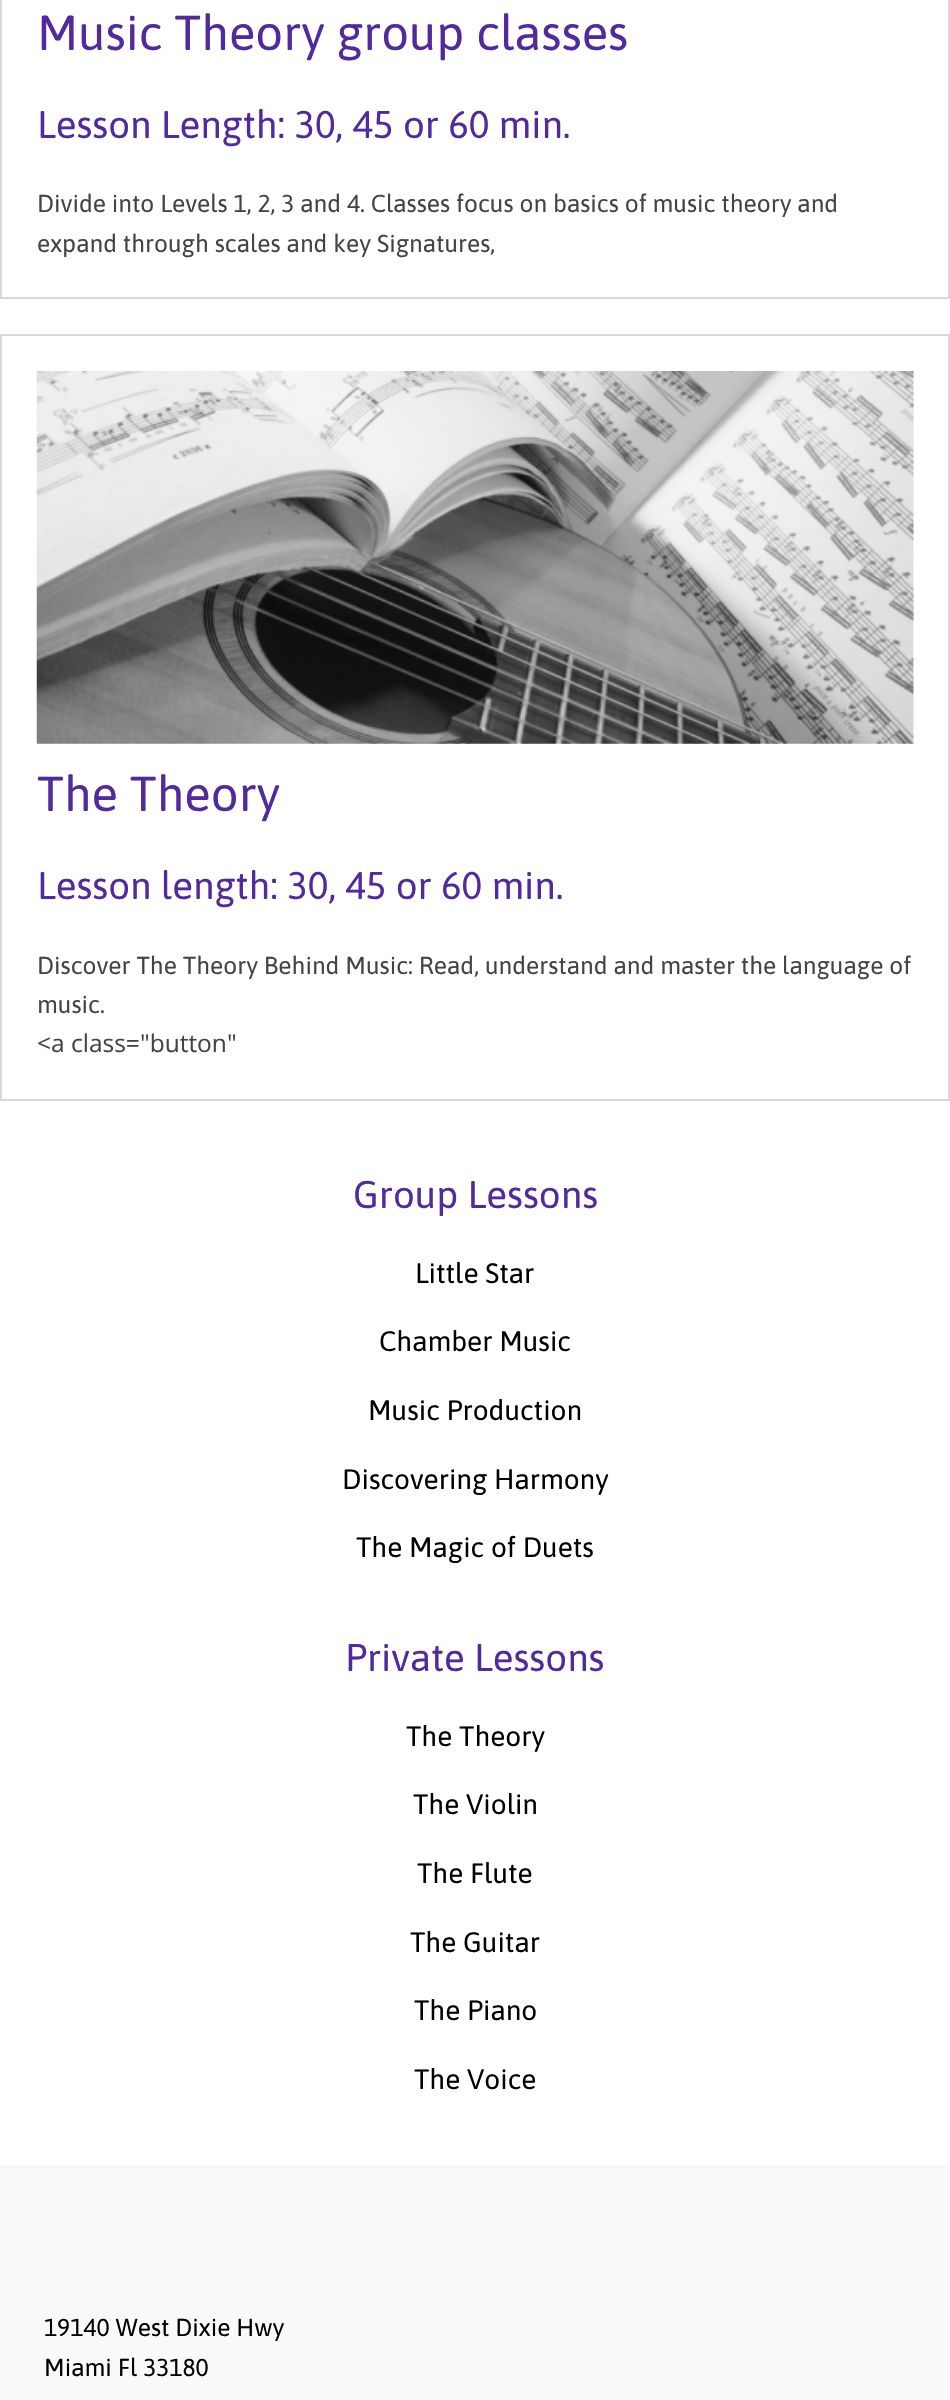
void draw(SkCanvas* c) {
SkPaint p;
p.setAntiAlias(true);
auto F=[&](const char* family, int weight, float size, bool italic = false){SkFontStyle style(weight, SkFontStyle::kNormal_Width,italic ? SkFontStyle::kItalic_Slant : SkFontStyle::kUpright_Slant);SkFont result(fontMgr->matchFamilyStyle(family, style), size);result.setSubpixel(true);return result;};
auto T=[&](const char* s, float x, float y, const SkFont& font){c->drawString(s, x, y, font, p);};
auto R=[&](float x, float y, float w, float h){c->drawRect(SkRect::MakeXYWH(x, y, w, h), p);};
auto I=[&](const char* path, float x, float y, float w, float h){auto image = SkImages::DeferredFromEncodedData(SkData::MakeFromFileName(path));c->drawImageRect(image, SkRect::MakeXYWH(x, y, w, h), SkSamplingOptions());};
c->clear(0xffffffff);
p.setStroke(true);
p.setStrokeWidth(2);
p.setColor(0xffd8d8d8);
c->drawRect(SkRect::MakeXYWH(1,-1,948,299),p);
auto f1 = F("Asap",400,49);
p.setStroke(false);
p.setColor(0xff522a9d);
T("Music Theory group classes",37,50,f1);
auto f2 = F("Asap",400,38.5);
T("Lesson Length: 30, 45 or 60 min.",37,138,f2);
auto f3 = F("Asap",400,24.5);
p.setColor(0xff444444);
T("Divide into Levels 1, 2, 3 and 4. Classes focus on basics of music theory and",37,212,f3);
T("expand through scales and key Signatures,",37,252,f3);
p.setStroke(true);
p.setColor(0xffd8d8d8);
c->drawRect(SkRect::MakeXYWH(1,335,948,765),p);
I("1.png",36,371,878,373);
p.setStroke(false);
p.setColor(0xff522a9d);
T("The Theory",37,811,f1);
T("Lesson length: 30, 45 or 60 min.",37,899,f2);
p.setColor(0xff444444);
T("Discover The Theory Behind Music: Read, understand and master the language of",37,974,f3);
T("music.",37,1013,f3);
auto f4 = F("Open Sans",400,24.5);
T("<a class=\"button\"",37,1052,f4);
p.setColor(0xff522a9d);
T("Group Lessons",353,1208,f2);
auto f5 = F("Asap",400,28);
p.setColor(0xff000000);
T("Little Star",415,1283,f5);
T("Chamber Music",379,1351,f5);
T("Music Production",368,1420,f5);
T("Discovering Harmony",342,1489,f5);
T("The Magic of Duets",356,1557,f5);
p.setColor(0xff522a9d);
T("Private Lessons",345,1671,f2);
p.setColor(0xff000000);
T("The Theory",406,1746,f5);
T("The Violin",413,1814,f5);
T("The Flute",417,1883,f5);
T("The Guitar",410,1952,f5);
T("The Piano",414,2020,f5);
T("The Voice",414,2089,f5);
p.setColor(0xfff9f9f9);
R(0,2165,950,235);
p.setColor(0xff000000);
T("19140 West Dixie Hwy",44,2336,f3);
T("Miami Fl 33180",44,2376,f3);
}
